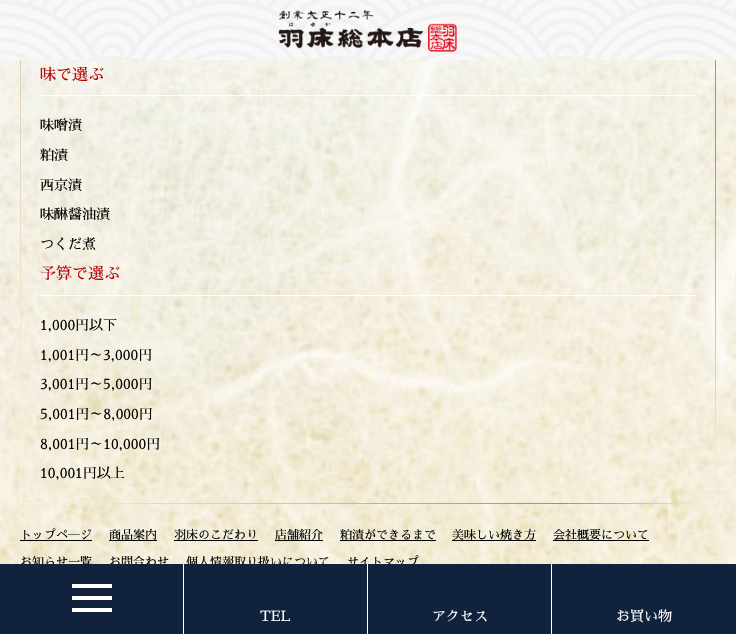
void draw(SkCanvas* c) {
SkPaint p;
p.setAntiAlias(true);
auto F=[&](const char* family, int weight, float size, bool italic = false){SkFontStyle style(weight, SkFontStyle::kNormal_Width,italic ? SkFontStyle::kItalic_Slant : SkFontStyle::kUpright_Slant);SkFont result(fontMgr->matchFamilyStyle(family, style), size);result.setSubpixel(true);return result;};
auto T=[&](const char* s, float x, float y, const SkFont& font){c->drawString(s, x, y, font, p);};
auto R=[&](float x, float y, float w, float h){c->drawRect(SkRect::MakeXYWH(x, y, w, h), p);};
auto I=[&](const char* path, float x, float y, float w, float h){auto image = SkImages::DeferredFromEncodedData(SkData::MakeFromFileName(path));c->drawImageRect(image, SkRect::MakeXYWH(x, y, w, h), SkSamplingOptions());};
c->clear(0xffffffff);
I("1.png",0,0,736,60);
I("2.png",278,10,179,42);
I("3.png",0,60,736,504);
{
const SkColor colors[] = {0xfffff3dc,0xffb08d68,0xfffff3dc};
const float stops[] = {0,.28,1};
const SkPoint ends[] = {{20,-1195}, {21,504}};
p.setShader(SkGradientShader::MakeLinear(ends, colors, stops, 3, SkTileMode::kClamp));
p.setAlpha(255);
}
R(20,60,1,444);
p.setShader(nullptr);
p.setColor(0xffffffff);
R(40,95,656,1);
auto f1 = F("Sawarabi Mincho",400,16);
p.setColor(0xffb30808);
T("味で選ぶ",40,80,f1);
auto f2 = F("Sawarabi Mincho",400,14);
p.setColor(0xff000000);
T("味噌漬",40,130,f2);
T("粕漬",40,160,f2);
T("西京漬",40,190,f2);
T("味醂醤油漬",40,219,f2);
T("つくだ煮",40,249,f2);
p.setColor(0xffffffff);
R(40,295,656,1);
p.setColor(0xffb30808);
T("予算で選ぶ",40,279,f1);
p.setColor(0xff000000);
T("1,000円以下",40,330,f2);
T("1,001円～3,000円",40,360,f2);
T("3,001円～5,000円",40,389,f2);
T("5,001円～8,000円",40,419,f2);
T("8,001円～10,000円",40,449,f2);
T("10,001円以上",40,478,f2);
{
const SkColor colors[] = {0xfffff3dc,0xffb08d68,0xfffff3dc};
const float stops[] = {0,.78,1};
const SkPoint ends[] = {{715,-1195}, {716,504}};
p.setShader(SkGradientShader::MakeLinear(ends, colors, stops, 3, SkTileMode::kClamp));
p.setAlpha(255);
}
R(715,60,1,444);
{
const SkColor colors[] = {0xfffff3dc,0xffb08d68,0xfffff3dc};
const float stops[] = {0,.78,1};
const SkPoint ends[] = {{20,504}, {716,504}};
p.setShader(SkGradientShader::MakeLinear(ends, colors, stops, 3, SkTileMode::kClamp));
p.setAlpha(255);
}
R(20,503,696,1);
auto f3 = F("Sawarabi Mincho",400,12);
p.setShader(nullptr);
p.setColor(0xff000000);
T("トップペ―ジ",20,539,f3);
R(20,540,72,1);
T("商品案内",109,539,f3);
R(109,540,48,1);
T("羽床のこだわり",174,539,f3);
R(174,540,84,1);
T("店舗紹介",275,539,f3);
R(275,540,48,1);
T("粕漬ができるまで",340,539,f3);
R(340,540,96,1);
T("美味しい焼き方",452,539,f3);
R(452,540,84,1);
R(553,540,96,1);
T("会社概要について",553,539,f3);
T("お知らせ一覧",20,566,f3);
T("お問合わせ",109,566,f3);
T("個人情報取り扱いについて",186,566,f3);
T("サイトマップ",347,566,f3);
p.setColor(0xff11223c);
R(0,564,736,70);
p.setColor(0xffffffff);
R(183,564,1,70);
R(72,584,40,4);
R(72,596,40,4);
R(72,608,40,4);
R(367,564,1,70);
T("TEL",260,621,f2);
R(551,564,1,70);
T("アクセス",432,621,f2);
T("お買い物",616,621,f2);
}
